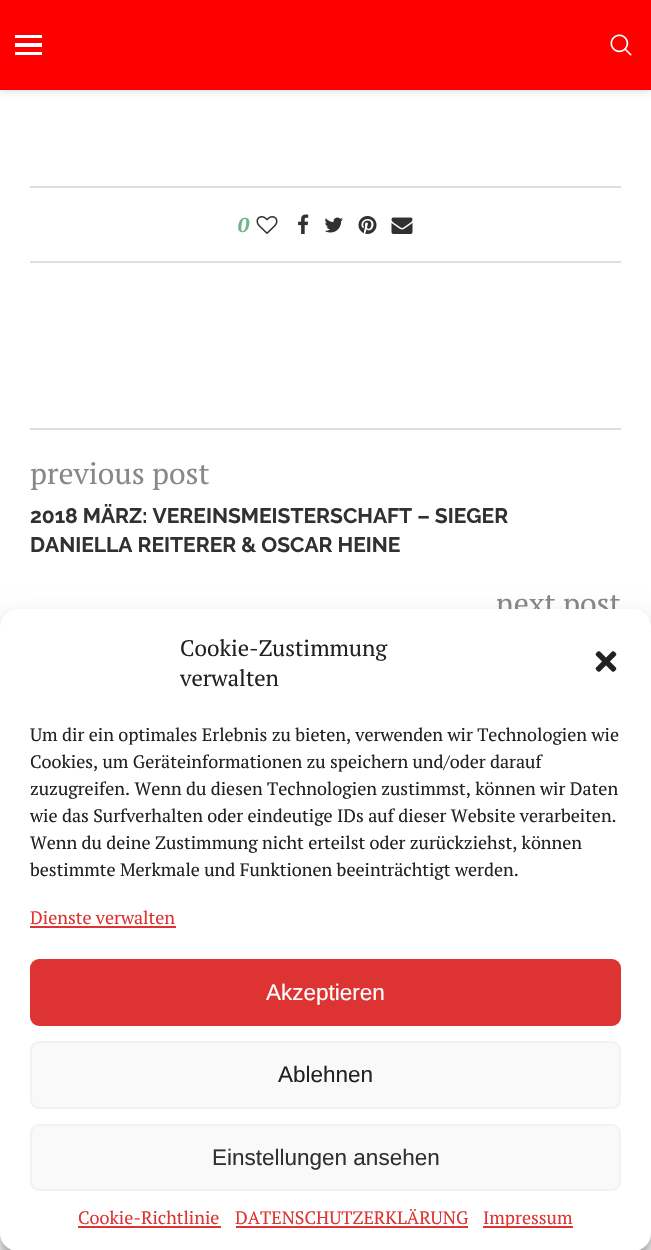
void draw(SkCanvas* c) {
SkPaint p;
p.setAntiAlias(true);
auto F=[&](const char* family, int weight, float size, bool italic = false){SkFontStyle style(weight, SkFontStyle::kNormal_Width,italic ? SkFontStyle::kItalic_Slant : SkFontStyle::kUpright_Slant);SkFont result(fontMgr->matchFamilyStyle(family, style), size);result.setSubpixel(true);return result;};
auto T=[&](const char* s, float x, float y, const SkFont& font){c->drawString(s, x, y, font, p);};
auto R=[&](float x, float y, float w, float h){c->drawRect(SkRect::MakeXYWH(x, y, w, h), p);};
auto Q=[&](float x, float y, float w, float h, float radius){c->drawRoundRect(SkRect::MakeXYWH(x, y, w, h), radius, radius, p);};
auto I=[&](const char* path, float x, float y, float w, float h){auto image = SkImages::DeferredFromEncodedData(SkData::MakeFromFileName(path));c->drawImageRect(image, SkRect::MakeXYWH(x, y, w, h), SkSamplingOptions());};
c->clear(0xffffffff);
p.setColor(0x75bebebe);
p.setMaskFilter(SkMaskFilter::MakeBlur(kNormal_SkBlurStyle, 4));
c->drawRect(SkRect::MakeXYWH(0,2,651,90),p);
p.setMaskFilter(nullptr);
p.setColor(0xffff0000);
R(0,0,651,90);
p.setColor(0xffffffff);
R(15,35,27,3);
R(15,43,27,4);
R(15,52,27,3);
I("1.png",610,34,22,22);
p.setColor(0xffdedede);
R(30,186,591,2);
auto f1 = F("PT Serif",700,20,true);
p.setColor(0xff6eb48c);
T("0",238,232,f1);
I("2.png",256,216,22,18);
I("3.png",298,214,11,20);
I("4.png",324,217,19,16);
I("5.png",358,216,19,18);
I("6.png",391,217,22,17);
p.setColor(0xffdedede);
R(30,261,591,2);
R(30,428,591,2);
auto f2 = F("PT Serif",400,30);
p.setColor(0xff888888);
T("previous post",30,484,f2);
auto f3 = F("Raleway",700,21);
p.setColor(0xff313131);
T("2018 MÄRZ: VEREINSMEISTERSCHAFT – SIEGER",30,523,f3);
T("DANIELLA REITERER & OSCAR HEINE",30,552,f3);
p.setColor(0xff888888);
T("next post",496,614,f2);
p.setColor(0x3b000000);
p.setMaskFilter(SkMaskFilter::MakeBlur(kNormal_SkBlurStyle, 4.5));
c->drawRoundRect(SkRect::MakeXYWH(0,618,651,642),18,18,p);
p.setMaskFilter(nullptr);
p.setColor(0x30000000);
p.setMaskFilter(SkMaskFilter::MakeBlur(kNormal_SkBlurStyle, 15));
c->drawRoundRect(SkRect::MakeXYWH(0,624,651,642),18,18,p);
p.setMaskFilter(nullptr);
p.setColor(0xffffffff);
Q(0,609,651,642,18);
auto f4 = F("PT Serif",400,22.5);
p.setColor(0xff222222);
T("Cookie-Zustimmung",180,656,f4);
T("verwalten",180,686,f4);
I("7.png",595,651,22,21);
auto f5 = F("PT Serif",400,18);
T("Um dir ein optimales Erlebnis zu bieten, verwenden wir Technologien wie",30,741,f5);
T("Cookies, um Geräteinformationen zu speichern und/oder darauf",30,768,f5);
T("zuzugreifen. Wenn du diesen Technologien zustimmst, können wir Daten",30,795,f5);
T("wie das Surfverhalten oder eindeutige IDs auf dieser Website verarbeiten.",30,822,f5);
T("Wenn du deine Zustimmung nicht erteilst oder zurückziehst, können",30,849,f5);
T("bestimmte Merkmale und Funktionen beeinträchtigt werden.",30,876,f5);
p.setColor(0xffdd3333);
T("Dienste verwalten",30,924,f5);
R(30,926,146,2);
c->drawRoundRect(SkRect::MakeXYWH(31,960,589,65),8,8,p);
p.setStroke(true);
p.setStrokeWidth(2);
c->drawRoundRect(SkRect::MakeXYWH(31,960,589,65),8,8,p);
auto f6 = F("Liberation Sans",400,22.5);
p.setStroke(false);
p.setColor(0xffffffff);
T("Akzeptieren",266,1000,f6);
p.setColor(0xfff9f9f9);
c->drawRoundRect(SkRect::MakeXYWH(31,1042,589,66),8,8,p);
p.setStroke(true);
p.setColor(0xfff2f2f2);
c->drawRoundRect(SkRect::MakeXYWH(31,1042,589,66),8,8,p);
p.setStroke(false);
p.setColor(0xff222222);
T("Ablehnen",278,1082,f6);
p.setColor(0xfff9f9f9);
c->drawRoundRect(SkRect::MakeXYWH(31,1125,589,65),8,8,p);
p.setStroke(true);
p.setColor(0xfff2f2f2);
c->drawRoundRect(SkRect::MakeXYWH(31,1125,589,65),8,8,p);
p.setStroke(false);
p.setColor(0xff313131);
T("Einstellungen ansehen",212,1165,f6);
p.setColor(0xffdd3333);
T("Cookie-Richtlinie",78,1224,f5);
R(78,1226,143,2);
T("DATENSCHUTZERKLÄRUNG",235,1224,f5);
R(236,1226,232,2);
R(483,1226,90,2);
T("Impressum",483,1224,f5);
}
